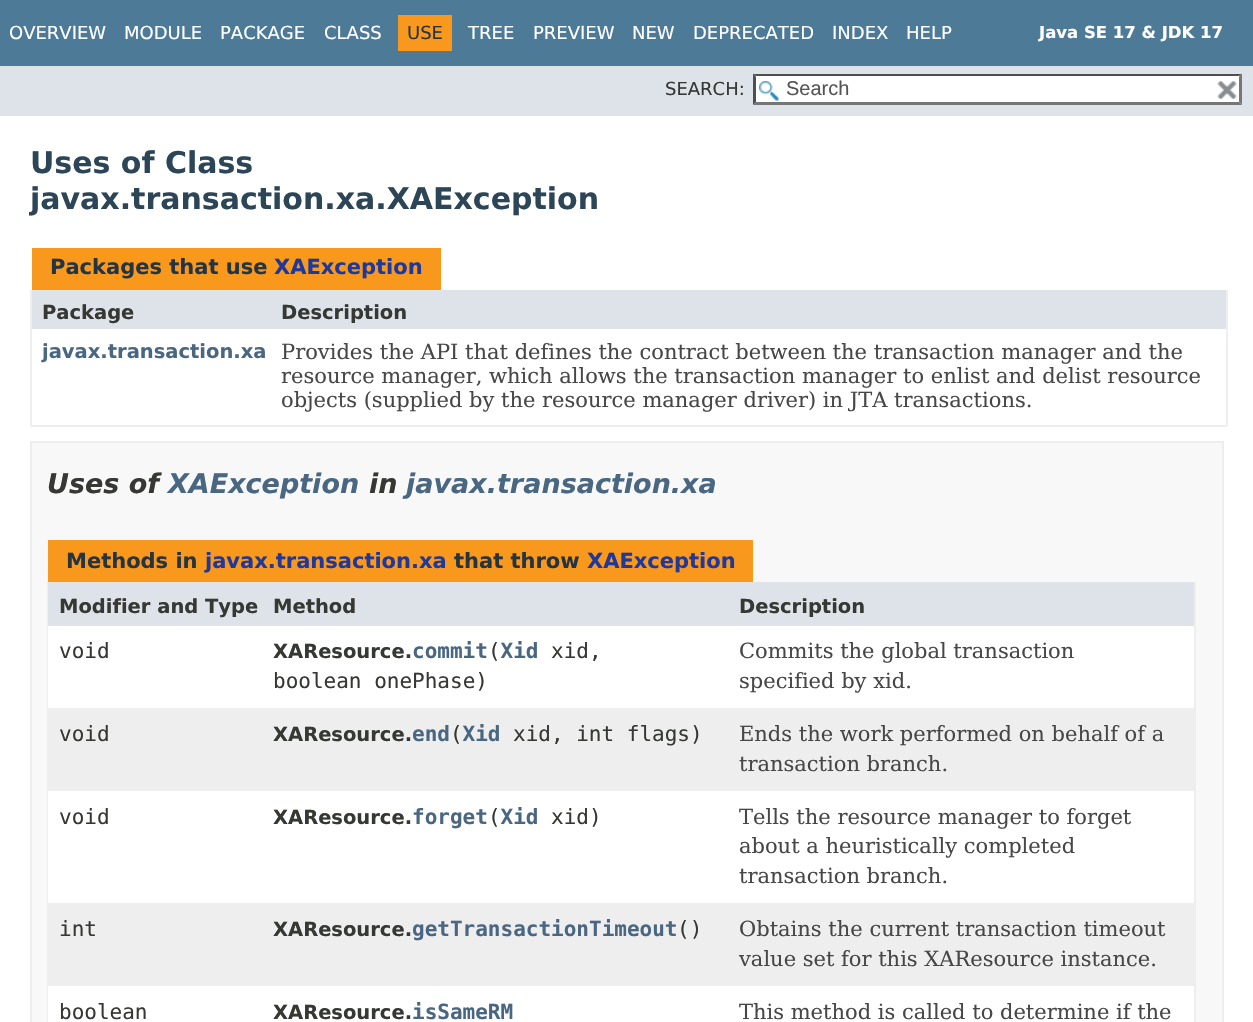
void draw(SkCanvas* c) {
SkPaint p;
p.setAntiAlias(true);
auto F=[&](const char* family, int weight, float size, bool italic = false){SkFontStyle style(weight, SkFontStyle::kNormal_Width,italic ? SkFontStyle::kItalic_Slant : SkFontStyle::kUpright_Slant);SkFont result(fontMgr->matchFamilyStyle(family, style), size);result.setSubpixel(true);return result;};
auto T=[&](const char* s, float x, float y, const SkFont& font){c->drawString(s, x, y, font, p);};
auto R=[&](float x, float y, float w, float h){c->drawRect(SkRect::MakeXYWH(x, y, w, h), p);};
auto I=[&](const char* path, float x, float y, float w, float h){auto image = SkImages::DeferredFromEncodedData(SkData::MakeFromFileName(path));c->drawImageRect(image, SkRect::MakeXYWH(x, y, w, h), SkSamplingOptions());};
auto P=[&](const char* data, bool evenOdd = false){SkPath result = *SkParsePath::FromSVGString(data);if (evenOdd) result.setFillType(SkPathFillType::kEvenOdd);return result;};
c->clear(0xffffffff);
p.setColor(0xff4d7a97);
R(0,0,1253,66);
auto f1 = F("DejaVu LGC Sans",400,18);
p.setColor(0xffffffff);
T("OVERVIEW",9,39,f1);
T("MODULE",124,39,f1);
T("PACKAGE",220,39,f1);
T("CLASS",324,39,f1);
p.setColor(0xfff8981d);
R(398,15,54,36);
p.setColor(0xff253441);
T("USE",407,39,f1);
p.setColor(0xffffffff);
T("TREE",468,39,f1);
T("PREVIEW",533,39,f1);
T("NEW",632,39,f1);
T("DEPRECATED",693,39,f1);
T("INDEX",832,39,f1);
T("HELP",906,39,f1);
auto f2 = F("DejaVu LGC Sans",700,16.5);
T("Java SE 17 & JDK 17",1039,38,f2);
p.setColor(0xffdee3e9);
R(0,66,1253,50);
p.setColor(0xff353833);
T("SEARCH:",665,95,f1);
p.setColor(0xffffffff);
R(753,74,489,31);
I("1.png",759,81,20,20);
p.setColor(0xff4f4f4f);
c->drawPath(P("M753 74h489l-3 2h-483z"),p);
p.setColor(0xff767676);
c->drawPath(P("M1242 73.5v31.5l-3-3v-25.5z"),p);
c->drawPath(P("M1242 105h-489l3-3h483z"),p);
p.setColor(0xff4f4f4f);
c->drawPath(P("M753 105v-31.5l3 3v25.5z"),p);
auto f3 = F("Liberation Sans",400,20);
p.setColor(0xff545454);
T("Search",786,95,f3);
I("2.png",1217,81,20,19);
auto f4 = F("DejaVu LGC Sans",700,30);
p.setColor(0xff2c4557);
T("Uses of Class",30,173,f4);
T("javax.transaction.xa.XAException",30,209,f4);
p.setColor(0xfff8981d);
R(32,248,409,42);
auto f5 = F("DejaVu LGC Sans",700,21);
p.setColor(0xff253441);
T("Packages that use",50,274,f5);
p.setColor(0xff1f389c);
T("XAException",274,274,f5);
p.setColor(0xffeeeeee);
R(1226,290,2,136);
R(30,425,1197,2);
R(30,290,2,136);
p.setColor(0xffdee3e9);
R(32,290,1194,39);
auto f6 = F("DejaVu LGC Sans",700,19.5);
p.setColor(0xff353833);
T("Package",42,319,f6);
T("Description",281,319,f6);
p.setColor(0xff4a6782);
T("javax.transaction.xa",42,358,f6);
auto f7 = F("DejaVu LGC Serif",400,21);
p.setColor(0xff474747);
T("Provides the API that defines the contract between the transaction manager and the",281,359,f7);
T("resource manager, which allows the transaction manager to enlist and delist resource",281,383,f7);
T("objects (supplied by the resource manager driver) in JTA transactions.",281,407,f7);
p.setColor(0xfff8f8f8);
c->drawRect(SkRect::MakeXYWH(31,442,1192,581),p);
p.setStroke(true);
p.setStrokeWidth(2);
p.setColor(0xffededed);
c->drawRect(SkRect::MakeXYWH(31,442,1192,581),p);
auto f8 = F("DejaVu LGC Sans",700,27,true);
p.setStroke(false);
p.setColor(0xff353833);
T("Uses of",47,493,f8);
p.setColor(0xff4a6782);
T("XAException",168,493,f8);
p.setColor(0xff353833);
T("in",369,493,f8);
p.setColor(0xff4a6782);
T("javax.transaction.xa",406,493,f8);
p.setColor(0xfff8981d);
R(48,540,705,42);
p.setColor(0xff253441);
T("Methods in",66,568,f5);
p.setColor(0xff1f389c);
T("javax.transaction.xa",205,568,f5);
p.setColor(0xff253441);
T("that throw",454,568,f5);
p.setColor(0xff1f389c);
T("XAException",587,568,f5);
p.setColor(0xffeeeeee);
R(1194,582,2,440);
R(47,582,1,440);
p.setColor(0xffdee3e9);
R(48,582,680,44);
p.setColor(0xff353833);
T("Modifier and Type",59,613,f6);
T("Method",273,613,f6);
p.setColor(0xffdee3e9);
R(728,582,466,44);
p.setColor(0xff353833);
T("Description",739,613,f6);
p.setColor(0xffffffff);
R(48,626,680,82);
auto f9 = F("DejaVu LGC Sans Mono",400,21);
p.setColor(0xff353833);
T("void",59,658,f9);
auto f10 = F("DejaVu LGC Sans Mono",700,21);
p.setColor(0xff4a6782);
T("commit Xid",412,658,f10);
p.setColor(0xff353833);
T("XAResource.",273,658,f6);
T("(",488,658,f9);
T("xid,",551,658,f9);
T("boolean onePhase)",273,688,f9);
p.setColor(0xffffffff);
R(728,626,466,82);
p.setColor(0xff474747);
T("Commits the global transaction",739,658,f7);
T("specified by xid.",739,688,f7);
p.setColor(0xffeeeeef);
R(48,708,680,83);
p.setColor(0xff353833);
T("void",59,741,f9);
p.setColor(0xff4a6782);
T("end Xid",412,741,f10);
p.setColor(0xff353833);
T("xid, int flags)",513,741,f9);
T("XAResource.",273,741,f6);
T("(",450,741,f9);
p.setColor(0xffeeeeef);
R(728,708,466,83);
p.setColor(0xff474747);
T("Ends the work performed on behalf of a",739,741,f7);
T("transaction branch.",739,771,f7);
p.setColor(0xffffffff);
R(48,791,680,112);
p.setColor(0xff353833);
T("void",59,824,f9);
p.setColor(0xff4a6782);
T("forget Xid",412,824,f10);
p.setColor(0xff353833);
T("XAResource.",273,824,f6);
T("(",488,824,f9);
T("xid)",551,824,f9);
p.setColor(0xffffffff);
R(728,791,466,112);
p.setColor(0xff474747);
T("Tells the resource manager to forget",739,824,f7);
T("about a heuristically completed",739,853,f7);
T("transaction branch.",739,883,f7);
p.setColor(0xffeeeeef);
R(48,903,680,83);
p.setColor(0xff353833);
T("int",59,936,f9);
T("XAResource.",273,936,f6);
p.setColor(0xff4a6782);
T("getTransactionTimeout",412,936,f10);
p.setColor(0xff353833);
T("()",677,936,f9);
p.setColor(0xffeeeeef);
R(728,903,466,83);
p.setColor(0xff474747);
T("Obtains the current transaction timeout",739,936,f7);
T("value set for this XAResource instance.",739,966,f7);
p.setColor(0xffffffff);
R(48,986,680,36);
p.setColor(0xff353833);
T("boolean",59,1019,f9);
T("XAResource.",273,1019,f6);
p.setColor(0xff4a6782);
T("isSameRM",412,1019,f10);
p.setColor(0xffffffff);
R(728,986,466,36);
p.setColor(0xff474747);
T("This method is called to determine if the",739,1019,f7);
}
